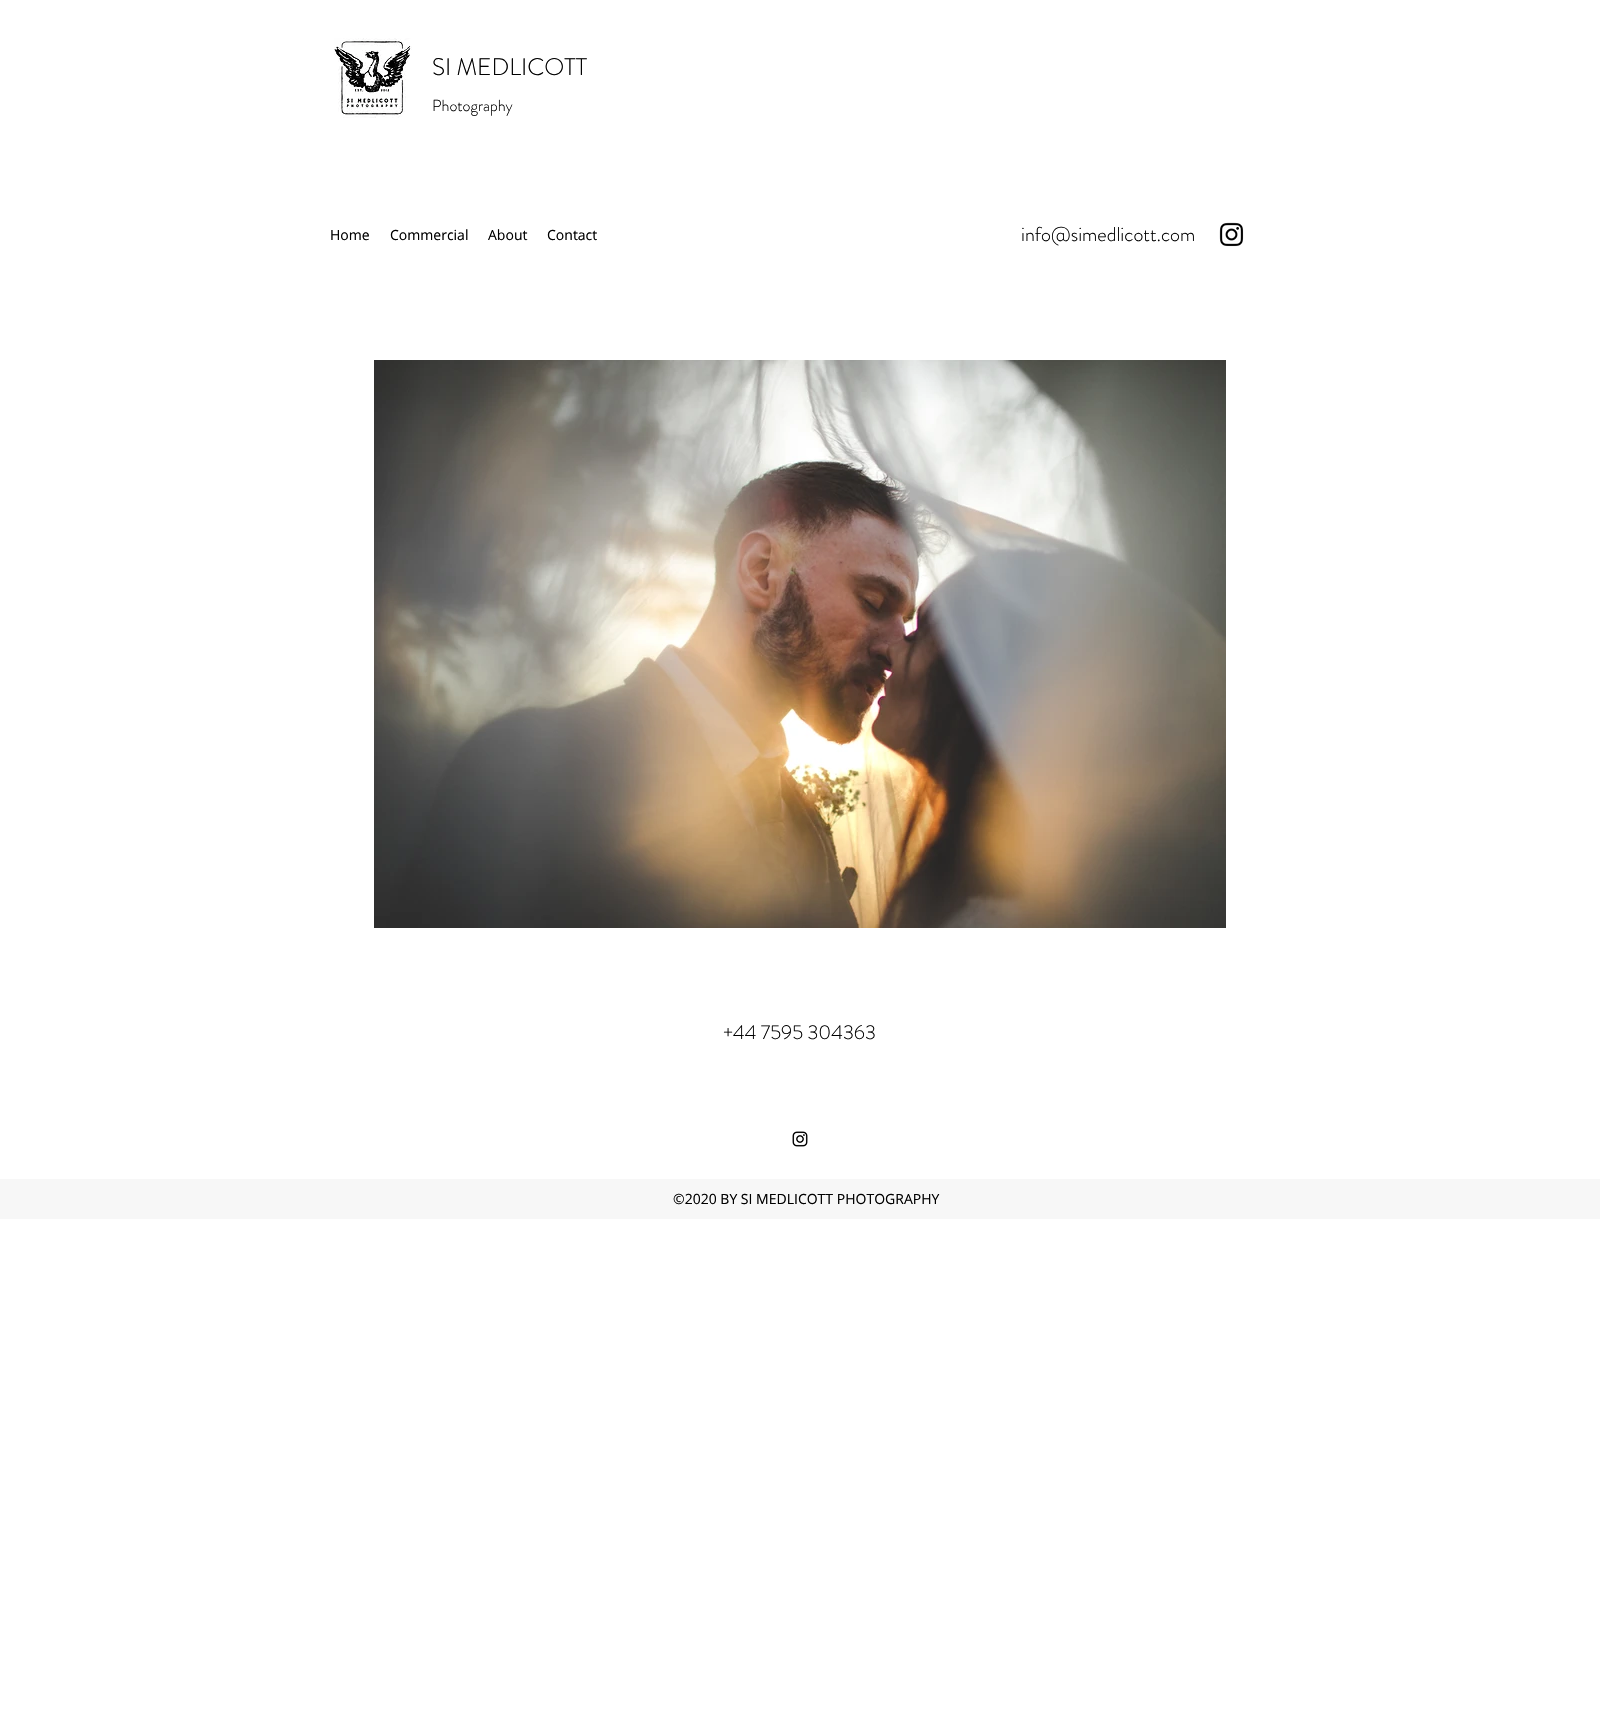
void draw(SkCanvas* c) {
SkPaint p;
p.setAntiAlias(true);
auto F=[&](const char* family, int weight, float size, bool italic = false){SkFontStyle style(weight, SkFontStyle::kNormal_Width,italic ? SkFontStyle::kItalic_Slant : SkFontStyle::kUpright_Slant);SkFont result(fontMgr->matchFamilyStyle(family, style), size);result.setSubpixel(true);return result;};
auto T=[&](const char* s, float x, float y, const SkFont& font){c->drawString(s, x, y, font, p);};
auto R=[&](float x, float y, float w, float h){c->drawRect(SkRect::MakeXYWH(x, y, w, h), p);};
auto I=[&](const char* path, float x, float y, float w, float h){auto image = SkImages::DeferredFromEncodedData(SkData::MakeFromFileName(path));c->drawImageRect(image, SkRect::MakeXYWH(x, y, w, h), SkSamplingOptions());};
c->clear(0xffffffff);
I("1.png",334,38,78,80);
auto f1 = F("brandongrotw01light",300,24);
p.setColor(0xff000000);
T("SI MEDLICOTT",432,75,f1);
auto f2 = F("brandongrotw01light",300,16);
T("Photography",432,111,f2);
auto f3 = F("Open Sans",400,14);
T("Home",330,240,f3);
T("Commercial",390,240,f3);
T("About",488,240,f3);
T("Contact",547,240,f3);
auto f4 = F("brandongrotw01light",300,20);
T("info@simedlicott.com",1021,241,f4);
I("2.png",1219,222,25,25);
I("3.png",374,360,852,568);
T("+44 7595 304363",723,1039,f4);
I("4.png",792,1131,16,16);
p.setColor(0xfff7f7f7);
R(0,1179,1600,40);
p.setColor(0xff000000);
T("©2020 BY SI MEDLICOTT PHOTOGRAPHY",673,1204,f3);
}
